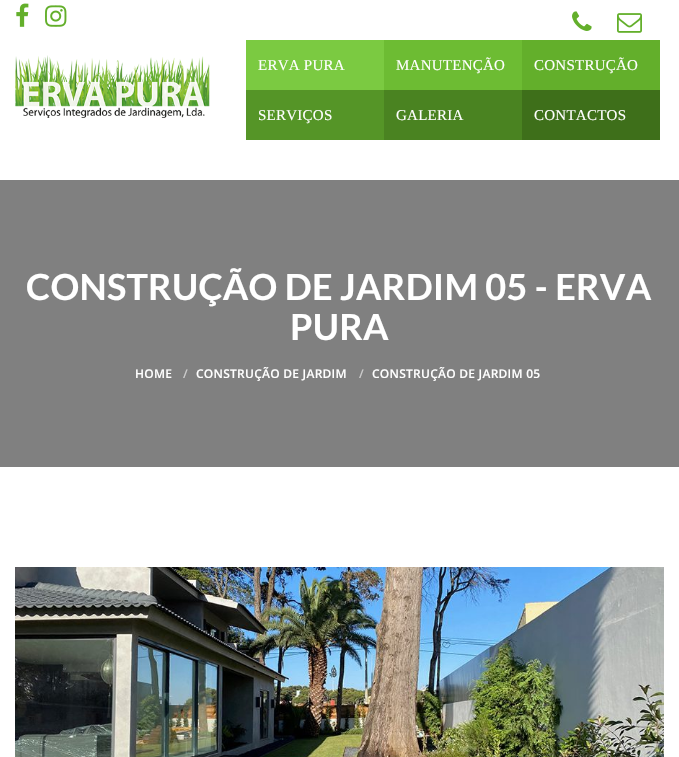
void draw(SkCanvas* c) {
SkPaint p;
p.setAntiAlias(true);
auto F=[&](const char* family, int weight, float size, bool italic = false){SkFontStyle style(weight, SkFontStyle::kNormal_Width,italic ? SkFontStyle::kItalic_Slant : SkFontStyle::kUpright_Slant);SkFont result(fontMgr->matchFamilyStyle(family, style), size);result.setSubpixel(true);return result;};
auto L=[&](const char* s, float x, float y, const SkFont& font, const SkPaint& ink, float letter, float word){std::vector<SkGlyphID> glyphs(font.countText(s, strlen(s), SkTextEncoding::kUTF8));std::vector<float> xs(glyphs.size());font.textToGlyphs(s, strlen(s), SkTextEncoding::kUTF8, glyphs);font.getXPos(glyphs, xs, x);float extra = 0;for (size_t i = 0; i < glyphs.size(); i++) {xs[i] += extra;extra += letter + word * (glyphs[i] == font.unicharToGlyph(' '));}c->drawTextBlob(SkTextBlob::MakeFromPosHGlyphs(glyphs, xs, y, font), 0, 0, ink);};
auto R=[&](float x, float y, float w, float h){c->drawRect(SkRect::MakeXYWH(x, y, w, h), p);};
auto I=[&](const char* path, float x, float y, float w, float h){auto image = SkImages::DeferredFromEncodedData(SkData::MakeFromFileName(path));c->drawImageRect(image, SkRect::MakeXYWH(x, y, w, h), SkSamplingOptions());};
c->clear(0xffffffff);
I("1.png",16,3,13,24);
I("2.png",45,5,22,22);
I("3.png",572,11,20,20);
I("4.png",617,13,25,20);
I("5.png",15,55,195,63);
p.setColor(0xff7bca41);
R(246,40,138,50);
auto f1 = F("Liberation Serif",400,15);
p.setColor(0xffffffff);
L("ERVA PURA",258,70,f1,p,.25,0);
p.setColor(0xff6dbc33);
R(384,40,138,50);
p.setColor(0xffffffff);
L("MANUTENÇÃO",396,70,f1,p,.25,0);
p.setColor(0xff63af2b);
R(522,40,138,50);
p.setColor(0xffffffff);
L("CONSTRUÇÃO",534,70,f1,p,.25,0);
p.setColor(0xff559527);
R(246,90,138,50);
p.setColor(0xffffffff);
L("SERVIÇOS",258,120,f1,p,.25,0);
p.setColor(0xff4a8321);
R(384,90,138,50);
p.setColor(0xffffffff);
L("GALERIA",396,120,f1,p,.25,0);
p.setColor(0xff3e6f1a);
R(522,90,138,50);
p.setColor(0xffffffff);
L("CONTACTOS",534,120,f1,p,.25,0);
p.setColor(0xff808080);
R(0,180,679,287);
auto f2 = F("Lato",700,36);
p.setColor(0xffffffff);
L("CONSTRUÇÃO DE JARDIM 05 - ERVA",26,300,f2,p,.25,0);
L("PURA",290,340,f2,p,.25,0);
auto f3 = F("Open Sans",600,12);
L("HOME",135,378,f3,p,.25,0);
p.setColor(0xffcccccc);
L("/",183,378,f3,p,.25,0);
p.setColor(0xffffffff);
L("CONSTRUÇÃO DE JARDIM",196,378,f3,p,.25,0);
p.setColor(0xffcccccc);
L("/",359,378,f3,p,.25,0);
p.setColor(0xffffffff);
L("CONSTRUÇÃO DE JARDIM 05",372,378,f3,p,.25,0);
I("6.png",15,567,649,190);
}
